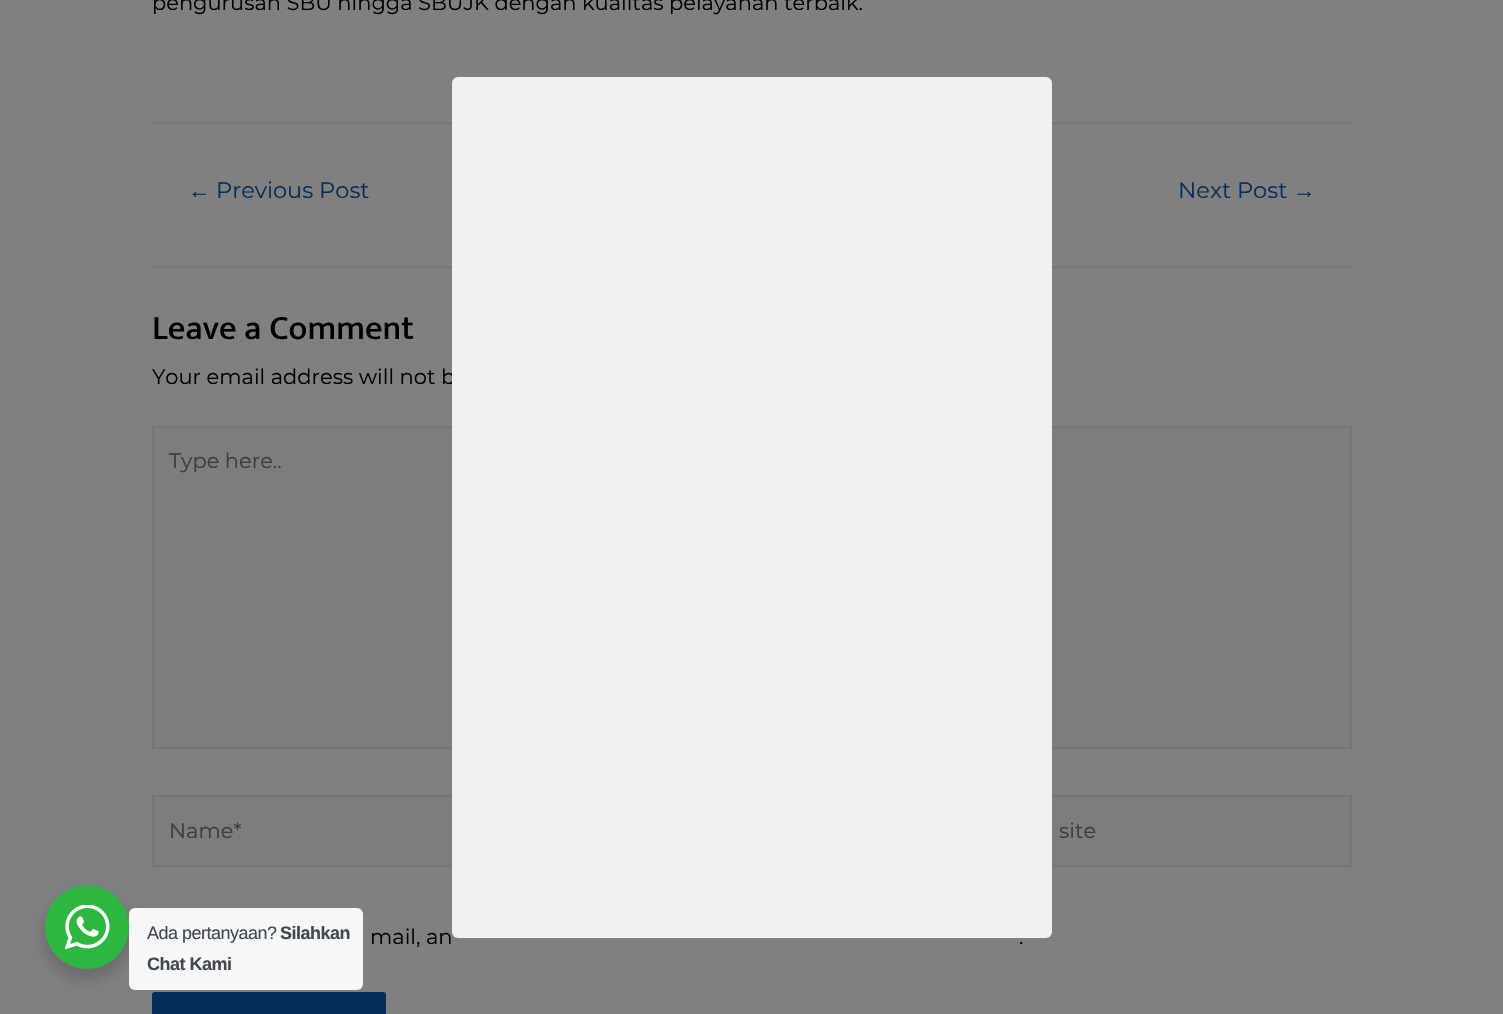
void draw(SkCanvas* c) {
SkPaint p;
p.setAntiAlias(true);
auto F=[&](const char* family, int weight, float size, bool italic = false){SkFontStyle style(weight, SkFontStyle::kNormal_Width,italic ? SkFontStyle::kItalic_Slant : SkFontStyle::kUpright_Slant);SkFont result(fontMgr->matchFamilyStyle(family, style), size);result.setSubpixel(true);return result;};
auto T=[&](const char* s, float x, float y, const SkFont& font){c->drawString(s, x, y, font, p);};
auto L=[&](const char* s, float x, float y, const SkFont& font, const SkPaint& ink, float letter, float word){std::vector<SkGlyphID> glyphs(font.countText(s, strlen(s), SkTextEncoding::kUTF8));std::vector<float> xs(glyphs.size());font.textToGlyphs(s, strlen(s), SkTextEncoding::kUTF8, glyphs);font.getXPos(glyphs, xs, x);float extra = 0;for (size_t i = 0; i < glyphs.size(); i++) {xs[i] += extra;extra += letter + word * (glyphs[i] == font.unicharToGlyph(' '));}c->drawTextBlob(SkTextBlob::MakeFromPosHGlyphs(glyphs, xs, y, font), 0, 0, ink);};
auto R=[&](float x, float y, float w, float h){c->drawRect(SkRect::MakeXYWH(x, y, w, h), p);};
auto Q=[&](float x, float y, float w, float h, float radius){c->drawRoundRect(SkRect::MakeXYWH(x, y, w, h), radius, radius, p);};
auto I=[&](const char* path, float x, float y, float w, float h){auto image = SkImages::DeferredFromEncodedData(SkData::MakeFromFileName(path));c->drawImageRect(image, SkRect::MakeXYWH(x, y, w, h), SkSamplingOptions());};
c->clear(0xff808080);
auto f1 = F("Montserrat",100,21);
p.setColor(0xff000000);
T("pengurusan SBU hingga SBUJK dengan kualitas pelayanan terbaik.",152,10,f1);
p.setColor(0xff777777);
R(152,122,1200,2);
auto f2 = F("Liberation Sans",400,22.5);
p.setColor(0xff042d57);
T("←",188,198,f2);
auto f3 = F("Montserrat",100,22.5);
T("Previous Post",216,198,f3);
T("Next Post",1178,198,f3);
T("→",1293,198,f2);
p.setColor(0xff777777);
R(152,266,1200,2);
auto f4 = F("Mukta Vaani",500,34.5);
p.setColor(0xff000000);
T("Leave a Comment",152,339,f4);
T("Your email address will not b",152,384,f1);
p.setColor(0xff7d7d7d);
c->drawRect(SkRect::MakeXYWH(153,427,1198,321),p);
p.setStroke(true);
p.setStrokeWidth(2);
p.setColor(0xff757575);
c->drawRect(SkRect::MakeXYWH(153,427,1198,321),p);
p.setStroke(false);
p.setColor(0xff3b3b3b);
T("Type here..",169,468,f1);
p.setColor(0xff7d7d7d);
R(154,797,298,68);
p.setStroke(true);
p.setColor(0xff757575);
c->drawRect(SkRect::MakeXYWH(153,796,358,70),p);
p.setStroke(false);
p.setColor(0xff3b3b3b);
T("Name*",169,838,f1);
p.setColor(0xff7d7d7d);
R(1052,797,298,68);
p.setStroke(true);
p.setColor(0xff757575);
c->drawRect(SkRect::MakeXYWH(993,796,358,70),p);
p.setStroke(false);
p.setColor(0xff3b3b3b);
T("site",1059,838,f1);
p.setColor(0xff000000);
T("mail, an",370,944,f1);
T(".",1019,944,f1);
p.setColor(0xff042d57);
Q(152,992,234,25,3);
p.setColor(0xfff0f1f2);
Q(452,77,600,861,6);
p.setColor(0x24000000);
p.setMaskFilter(SkMaskFilter::MakeBlur(kNormal_SkBlurStyle, 6));
c->drawRoundRect(SkRect::MakeXYWH(42,891,90,90),45,45,p);
p.setMaskFilter(nullptr);
p.setColor(0xff2db742);
c->drawCircle(87,927,42,p);
I("1.png",65,905,45,45);
p.setColor(0xfff5f7f9);
Q(129,908,234,82,6);
auto f5 = F("Liberation Sans",400,18);
p.setColor(0xff43474e);
L("Ada pertanyaan?",147,939,f5,p,-.5,0);
auto f6 = F("Liberation Sans",700,18);
L("Silahkan",280,939,f6,p,-.5,0);
L("Chat Kami",147,970,f6,p,-.5,0);
}
